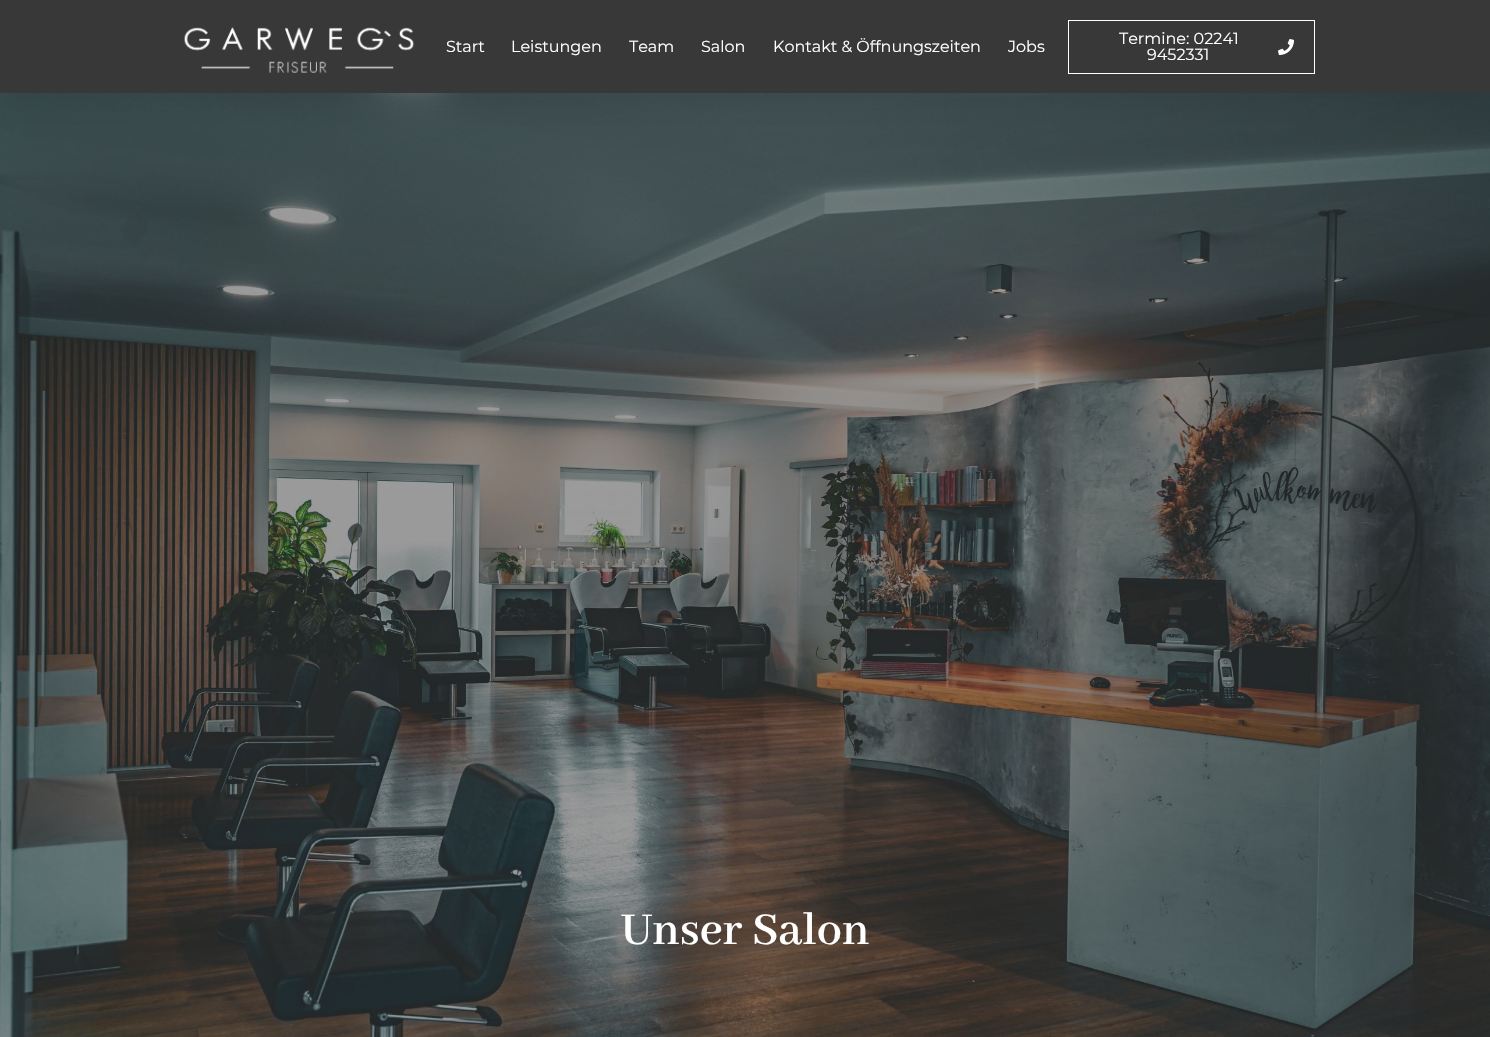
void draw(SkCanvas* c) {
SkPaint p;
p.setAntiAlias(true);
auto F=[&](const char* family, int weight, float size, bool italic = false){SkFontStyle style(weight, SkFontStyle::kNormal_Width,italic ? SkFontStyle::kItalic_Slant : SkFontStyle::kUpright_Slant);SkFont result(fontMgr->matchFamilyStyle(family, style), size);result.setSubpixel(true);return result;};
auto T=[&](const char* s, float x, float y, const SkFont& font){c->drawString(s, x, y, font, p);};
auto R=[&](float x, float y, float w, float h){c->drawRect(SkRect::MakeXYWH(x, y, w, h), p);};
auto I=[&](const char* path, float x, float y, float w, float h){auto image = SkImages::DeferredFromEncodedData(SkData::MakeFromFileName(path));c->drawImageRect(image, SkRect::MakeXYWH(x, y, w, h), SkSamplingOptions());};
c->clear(0xffffffff);
I("3.png",0,93,1490,944);
p.setColor(0x1a000000);
p.setMaskFilter(SkMaskFilter::MakeBlur(kNormal_SkBlurStyle, 15));
c->drawRect(SkRect::MakeXYWH(0,5,1490,93),p);
p.setMaskFilter(nullptr);
p.setColor(0xff383838);
R(0,0,1490,93);
I("1.png",184,27,230,46);
auto f1 = F("Montserrat",400,16);
p.setColor(0xffffffff);
T("Start",446,52,f1);
T("Leistungen",511,52,f1);
T("Team",629,52,f1);
T("Salon",701,52,f1);
T("Kontakt & Öffnungszeiten",773,52,f1);
T("Jobs",1008,52,f1);
p.setStroke(true);
p.setStrokeWidth(1);
c->drawRect(SkRect::MakeXYWH(1068.5,20.5,246,53),p);
p.setStroke(false);
T("Termine: 02241",1119,44,f1);
T("9452331",1147,60,f1);
I("2.png",1278,39,16,16);
auto f2 = F("Abhaya Libre SemiBold",600,50);
T("Unser Salon",621,944,f2);
}
